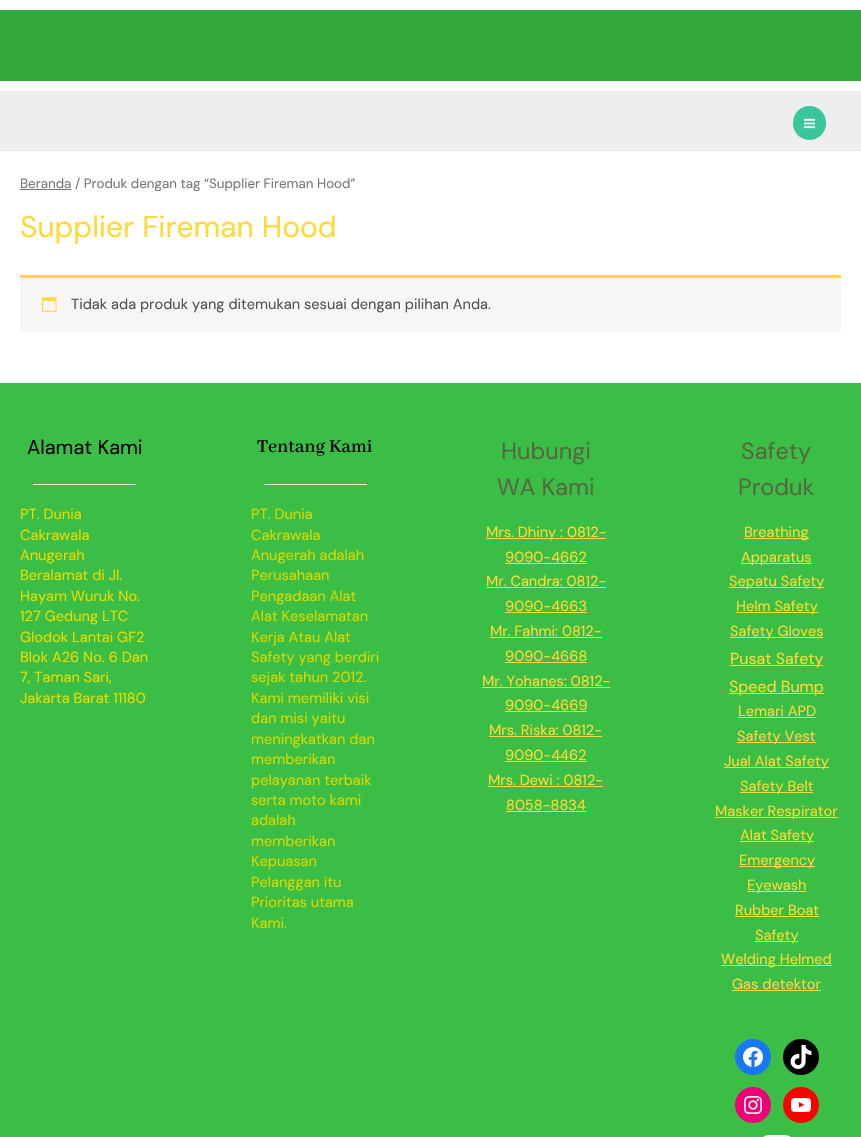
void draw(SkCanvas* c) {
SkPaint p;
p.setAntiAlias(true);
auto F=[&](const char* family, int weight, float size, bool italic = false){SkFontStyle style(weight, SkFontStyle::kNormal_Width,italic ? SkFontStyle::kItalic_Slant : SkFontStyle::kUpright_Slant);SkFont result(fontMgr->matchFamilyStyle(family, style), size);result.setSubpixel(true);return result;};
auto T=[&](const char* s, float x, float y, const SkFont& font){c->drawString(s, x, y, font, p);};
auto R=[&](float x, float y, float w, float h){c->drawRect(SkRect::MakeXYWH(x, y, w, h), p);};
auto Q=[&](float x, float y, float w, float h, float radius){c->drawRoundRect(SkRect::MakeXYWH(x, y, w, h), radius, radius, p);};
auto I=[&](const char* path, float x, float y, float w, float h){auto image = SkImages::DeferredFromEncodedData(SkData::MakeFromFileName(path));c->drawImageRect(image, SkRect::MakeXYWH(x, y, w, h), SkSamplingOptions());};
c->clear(0xffffffff);
p.setColor(0xff32a93c);
R(0,10,861,71);
p.setColor(0xffeeeeee);
R(0,91,861,59);
p.setColor(0xffeaeaea);
R(0,150,861,1);
p.setColor(0xff39c69c);
Q(793,106,33,34,16.5);
I("1.png",803,118,13,11);
p.setColor(0xff777777);
R(20,189,51,1);
auto f1 = F("DM Sans",400,13.4);
T("Beranda / Produk dengan tag “Supplier Fireman Hood”",20,188,f1);
auto f2 = F("DM Sans",400,30);
p.setColor(0xffffd936);
T("Supplier Fireman Hood",20,237,f2);
p.setColor(0xfff7f6f7);
R(20,278,821,54);
p.setColor(0xffffd936);
R(20,275,821,3);
I("2.png",42,297,15,15);
auto f3 = F("DM Sans",400,14.6);
p.setColor(0xff515151);
T("Tidak ada produk yang ditemukan sesuai dengan pilihan Anda.",71,309,f3);
p.setColor(0xff3abe45);
R(0,383,861,754);
auto f4 = F("DM Sans",400,20);
p.setColor(0xff000000);
T("Alamat Kami",27,454,f4);
p.setColor(0xffeeeeee);
R(33,484,103,1);
p.setColor(0xffeada00);
T("PT. Dunia",20,519,f3);
T("Cakrawala",20,540,f3);
T("Anugerah",20,560,f3);
T("Beralamat di Jl.",20,580,f3);
T("Hayam Wuruk No.",20,601,f3);
T("127 Gedung LTC",20,621,f3);
T("Glodok Lantai GF2",20,642,f3);
T("Blok A26 No. 6 Dan",20,662,f3);
T("7, Taman Sari,",20,682,f3);
T("Jakarta Barat 11180",20,703,f3);
auto f5 = F("Abhaya Libre SemiBold",600,20);
p.setColor(0xff000000);
T("Tentang Kami",257,452,f5);
p.setColor(0xffeeeeee);
R(264,484,103,1);
p.setColor(0xffd8d800);
T("PT. Dunia",251,519,f3);
T("Cakrawala",251,540,f3);
T("Anugerah adalah",251,560,f3);
T("Perusahaan",251,580,f3);
T("Pengadaan Alat",251,601,f3);
T("Alat Keselamatan",251,621,f3);
T("Kerja Atau Alat",251,642,f3);
T("Safety yang berdiri",251,662,f3);
T("sejak tahun 2012.",251,682,f3);
T("Kami memiliki visi",251,703,f3);
T("dan misi yaitu",251,723,f3);
T("meningkatkan dan",251,744,f3);
T("memberikan",251,764,f3);
T("pelayanan terbaik",251,785,f3);
T("serta moto kami",251,805,f3);
T("adalah",251,825,f3);
T("memberikan",251,846,f3);
T("Kepuasan",251,866,f3);
T("Pelanggan itu",251,887,f3);
T("Prioritas utama",251,907,f3);
T("Kami.",251,928,f3);
auto f6 = F("DM Sans",400,23.5);
p.setColor(0xff536942);
T("Hubungi",501,459,f6);
T("WA Kami",497,495,f6);
p.setColor(0xffffd936);
R(486,538,120,1);
T("Mrs. Dhiny : 0812-",486,537,f3);
T("9090-4662",505,562,f3);
R(505,563,82,1);
T("Mr. Candra: 0812-",486,586,f3);
R(486,587,120,1);
T("9090-4663",505,611,f3);
R(505,612,82,1);
T("Mr. Fahmi: 0812-",490,636,f3);
R(490,637,112,1);
T("9090-4668",505,661,f3);
R(505,662,82,1);
T("Mr. Yohanes: 0812-",482,686,f3);
R(482,687,128,1);
T("9090-4669",505,710,f3);
R(505,711,82,1);
T("Mrs. Riska: 0812-",489,735,f3);
R(489,736,113,1);
T("9090-4462",505,760,f3);
R(505,761,82,1);
T("Mrs. Dewi : 0812-",488,785,f3);
R(488,786,115,1);
T("8058-8834",506,810,f3);
R(506,811,80,1);
p.setColor(0xff536942);
T("Safety",741,459,f6);
T("Produk",738,495,f6);
p.setColor(0xffffd936);
R(744,538,65,1);
T("Breathing",744,537,f3);
R(741,563,71,1);
T("Apparatus",741,562,f3);
R(729,587,95,1);
T("Sepatu Safety",729,586,f3);
R(736,612,82,1);
T("Helm Safety",736,611,f3);
R(730,637,93,1);
T("Safety Gloves",730,636,f3);
R(730,665,93,1);
auto f7 = F("DM Sans",400,16);
T("Pusat Safety",730,664,f7);
R(729,693,95,1);
T("Speed Bump",729,692,f7);
T("Lemari APD",738,716,f3);
R(738,717,78,1);
R(737,742,79,1);
T("Safety Vest",737,741,f3);
R(724,767,105,1);
T("Jual Alat Safety",724,766,f3);
R(740,792,73,1);
T("Safety Belt",740,791,f3);
R(715,817,123,1);
T("Masker Respirator",715,816,f3);
R(740,841,74,1);
T("Alat Safety",740,840,f3);
R(739,866,76,1);
T("Emergency",739,865,f3);
R(747,891,59,1);
T("Eyewash",747,890,f3);
T("Rubber Boat",735,915,f3);
R(735,916,84,1);
R(755,941,43,1);
T("Safety",755,940,f3);
R(721,965,111,1);
T("Welding Helmed",721,964,f3);
T("Gas detektor",732,989,f3);
R(732,990,89,1);
p.setColor(0xff1778f2);
c->drawCircle(753,1057,18,p);
I("3.png",743,1047,20,20);
p.setColor(0xff000000);
c->drawCircle(801,1057,18,p);
I("4.png",790,1045,22,24);
p.setColor(0xfff00075);
c->drawCircle(753,1105,18,p);
I("5.png",744,1096,18,18);
p.setColor(0xffff0000);
c->drawCircle(801,1105,18,p);
I("6.png",791,1098,20,14);
p.setColor(0xfff0f0f0);
Q(759,1135,36,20,18);
}
